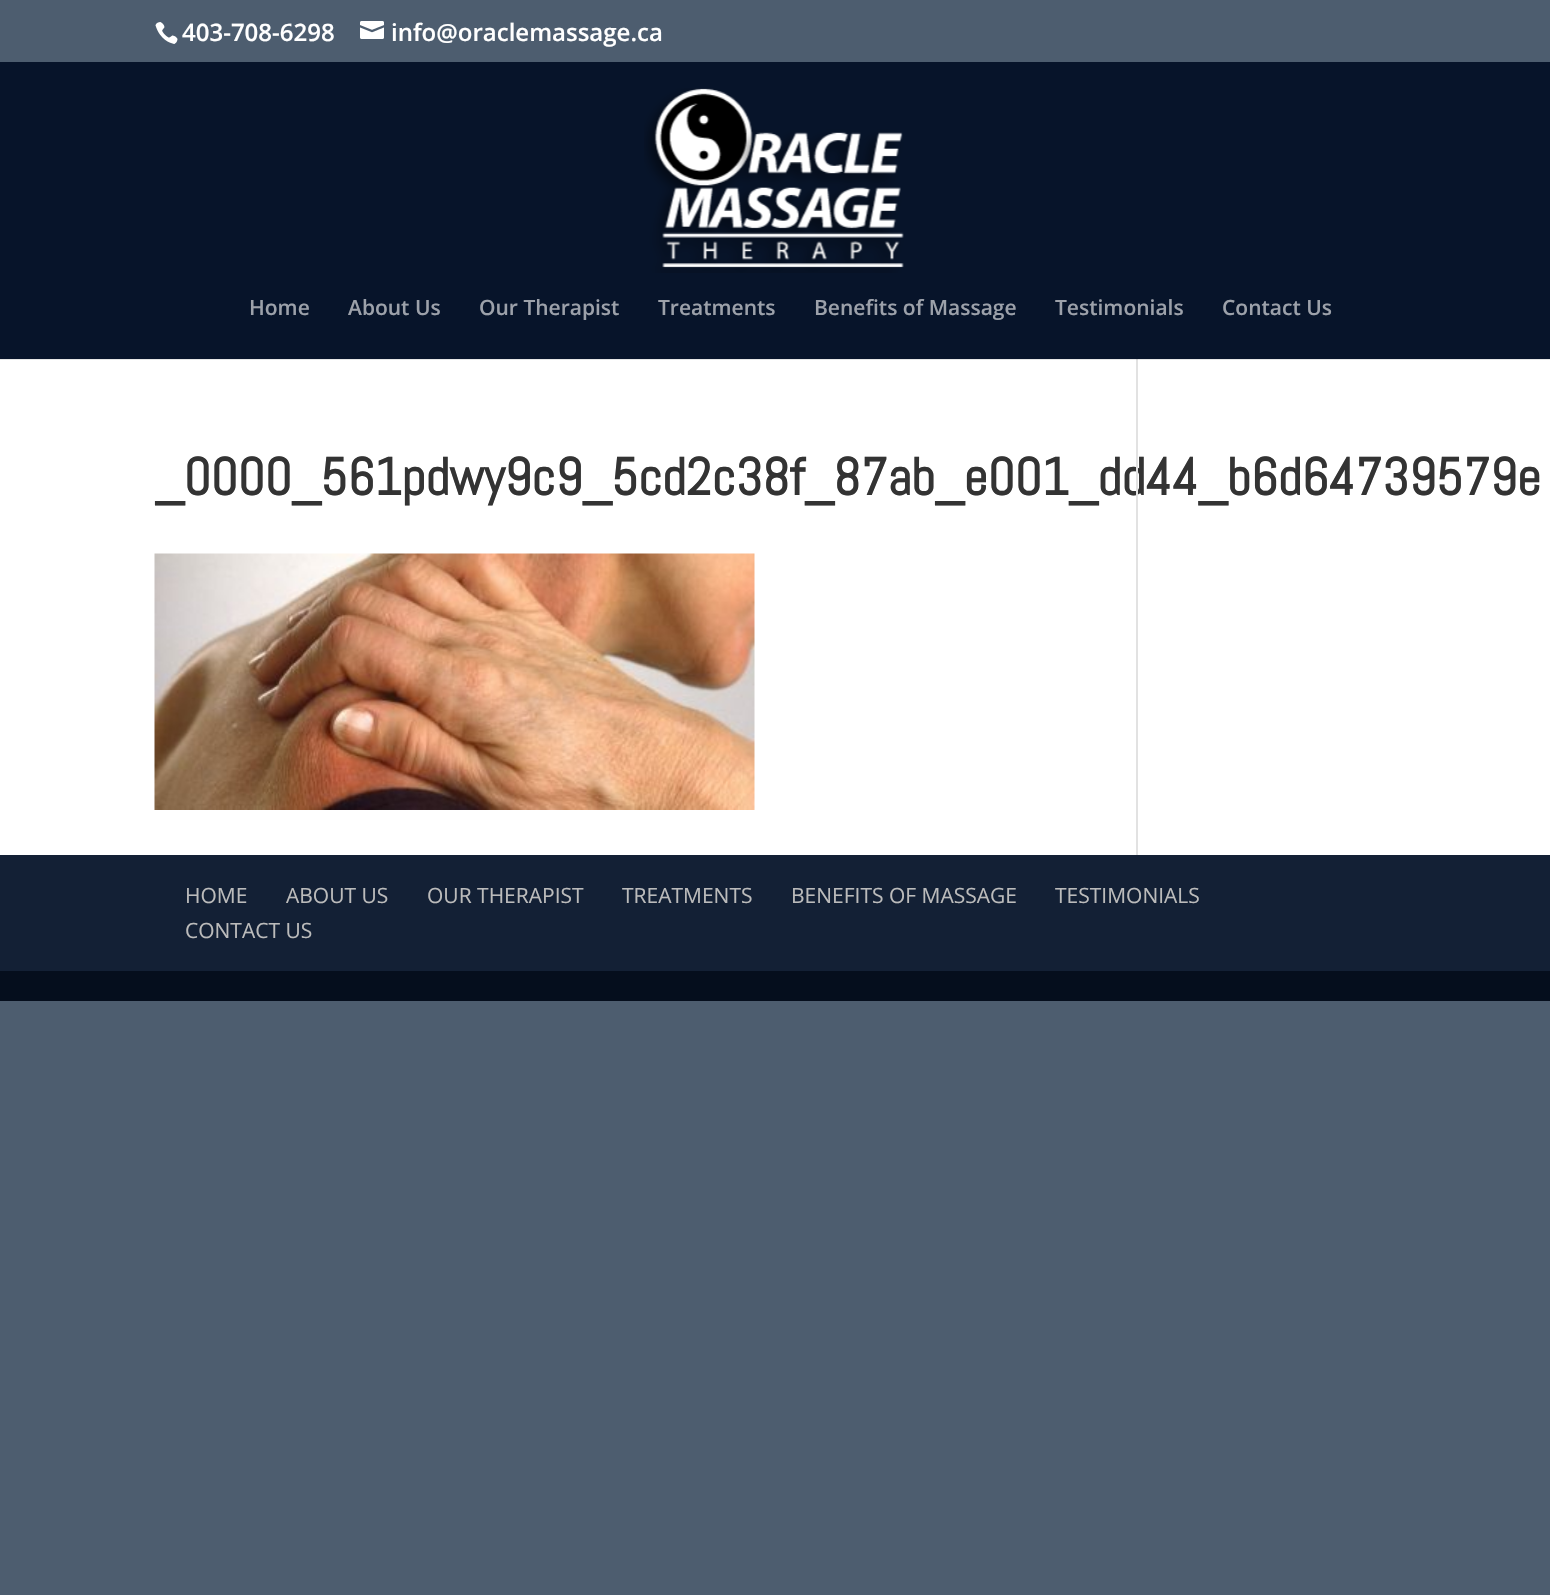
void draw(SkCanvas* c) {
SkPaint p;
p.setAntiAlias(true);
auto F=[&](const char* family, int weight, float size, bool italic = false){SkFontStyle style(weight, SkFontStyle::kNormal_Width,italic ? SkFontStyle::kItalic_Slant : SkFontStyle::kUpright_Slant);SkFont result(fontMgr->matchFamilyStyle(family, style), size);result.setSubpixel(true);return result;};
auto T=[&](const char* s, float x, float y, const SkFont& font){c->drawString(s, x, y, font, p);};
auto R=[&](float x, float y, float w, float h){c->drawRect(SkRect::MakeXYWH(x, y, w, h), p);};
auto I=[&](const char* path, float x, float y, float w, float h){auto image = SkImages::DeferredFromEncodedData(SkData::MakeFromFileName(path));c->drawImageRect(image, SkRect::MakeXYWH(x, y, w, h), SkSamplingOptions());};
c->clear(0xff4d5d6f);
I("1.png",155,22,23,22);
auto f1 = F("Open Sans",600,24);
p.setColor(0xffffffff);
T("403-708-6298",182,41,f1);
I("2.png",360,21,24,18);
T("info@oraclemassage.ca",391,41,f1);
p.setColor(0xff07142a);
R(0,62,1550,297);
I("3.png",644,88,260,185);
auto f2 = F("Open Sans",600,21);
p.setColor(0xff9ca1aa);
T("Home",249,315,f2);
T("About Us",348,315,f2);
T("Our Therapist",479,315,f2);
T("Treatments",658,315,f2);
T("Benefits of Massage",814,315,f2);
T("Testimonials",1055,315,f2);
T("Contact Us",1222,315,f2);
p.setColor(0xffffffff);
R(0,360,1550,495);
p.setColor(0xffe6e6e6);
R(0,359,1550,1);
auto f3 = F("Abel",700,52.5);
p.setColor(0xff333333);
T("_0000_561pdwy9c9_5cd2c38f_87ab_e001_dd44_b6d64739579e",155,495,f3);
p.setColor(0xffe2e2e2);
R(1136,359,2,496);
p.setColor(0xffcbcbcb);
R(1136,359,2,1);
I("4.png",154,553,601,257);
p.setColor(0xff132035);
R(0,855,1550,116);
auto f4 = F("Open Sans",400,21);
p.setColor(0xffbbbbbb);
T("HOME",185,903,f4);
T("ABOUT US",286,903,f4);
T("OUR THERAPIST",427,903,f4);
T("TREATMENTS",622,903,f4);
T("BENEFITS OF MASSAGE",791,903,f4);
T("TESTIMONIALS",1055,903,f4);
T("CONTACT US",185,938,f4);
p.setColor(0xff050e1d);
R(0,971,1550,30);
}
